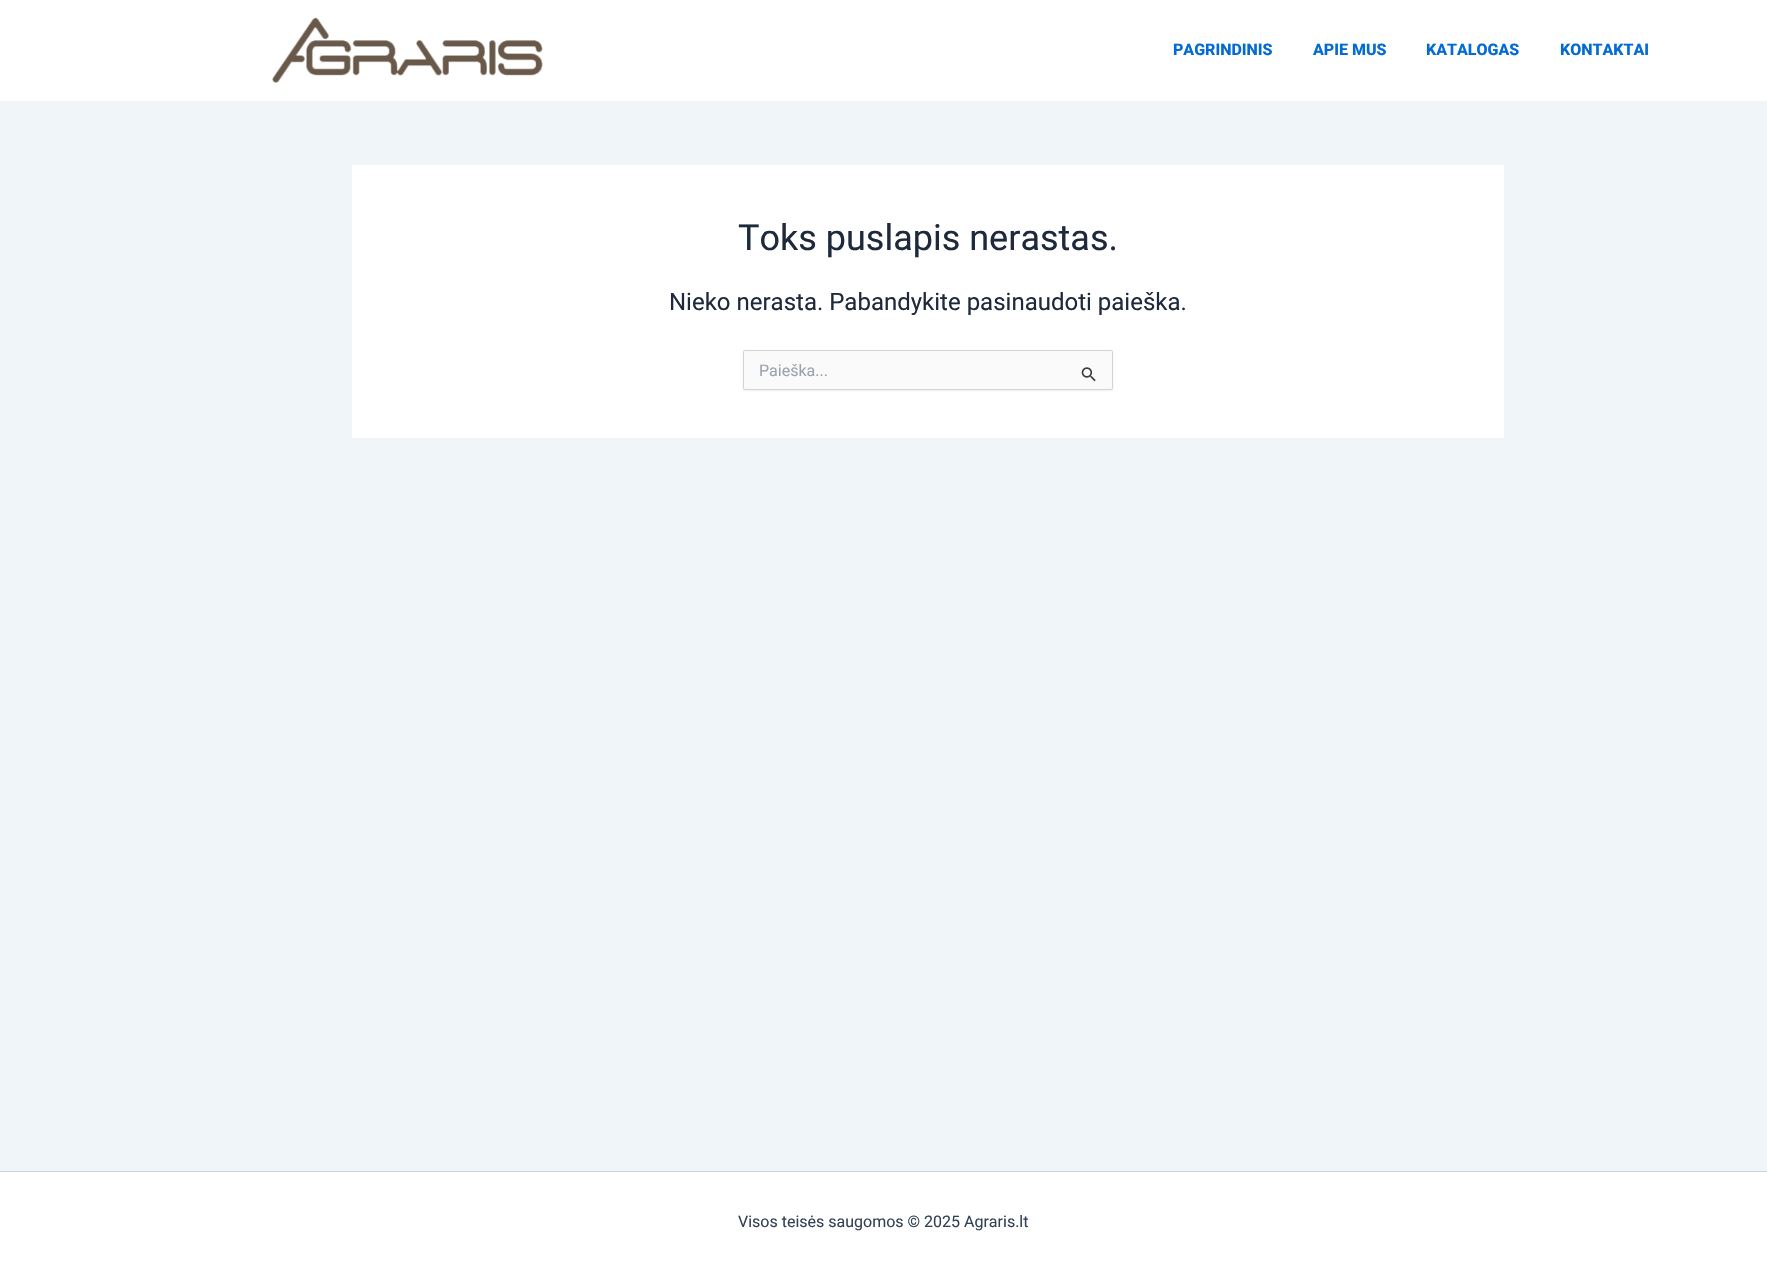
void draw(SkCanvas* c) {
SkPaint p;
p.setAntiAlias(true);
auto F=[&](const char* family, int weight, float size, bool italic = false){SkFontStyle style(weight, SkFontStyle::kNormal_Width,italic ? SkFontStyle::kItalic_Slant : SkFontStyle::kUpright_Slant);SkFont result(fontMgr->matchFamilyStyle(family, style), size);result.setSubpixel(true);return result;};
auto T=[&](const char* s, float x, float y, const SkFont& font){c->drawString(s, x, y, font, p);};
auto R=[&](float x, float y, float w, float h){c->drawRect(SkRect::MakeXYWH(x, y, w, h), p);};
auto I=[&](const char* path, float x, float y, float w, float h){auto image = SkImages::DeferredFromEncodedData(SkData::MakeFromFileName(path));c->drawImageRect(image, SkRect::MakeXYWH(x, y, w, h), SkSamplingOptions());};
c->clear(0xfff0f5fa);
p.setColor(0xffffffff);
R(0,0,1767,101);
I("1.png",272,17,271,66);
auto f1 = F("Roboto",800,16);
p.setColor(0xff046bd2);
T("PAGRINDINIS",1173,55,f1);
T("APIE MUS",1313,55,f1);
T("KATALOGAS",1426,55,f1);
T("KONTAKTAI",1560,55,f1);
p.setColor(0xffffffff);
R(352,165,1152,273);
auto f2 = F("Roboto",400,36);
p.setColor(0xff1e293b);
T("Toks puslapis nerastas.",738,250,f2);
auto f3 = F("Roboto",400,24);
T("Nieko nerasta. Pabandykite pasinaudoti paieška.",669,310,f3);
p.setColor(0x0d000000);
p.setMaskFilter(SkMaskFilter::MakeBlur(kNormal_SkBlurStyle, 1));
c->drawRoundRect(SkRect::MakeXYWH(743,351,370,40),2,2,p);
p.setMaskFilter(nullptr);
p.setColor(0xfffafafa);
c->drawRoundRect(SkRect::MakeXYWH(743.5,350.5,369,39),1.5,1.5,p);
p.setStroke(true);
p.setStrokeWidth(1);
p.setColor(0xffd1d5db);
c->drawRoundRect(SkRect::MakeXYWH(743.5,350.5,369,39),1.5,1.5,p);
auto f4 = F("Roboto",400,16);
p.setStroke(false);
p.setColor(0xff9ca3af);
T("Paieška...",759,376,f4);
I("2.png",1081,367,15,15);
p.setColor(0xffffffff);
R(0,1172,1767,100);
p.setColor(0xffd1d5db);
R(0,1171,1767,1);
p.setColor(0xff334155);
T("Visos teisės saugomos © 2025 Agraris.lt",738,1227,f4);
}
